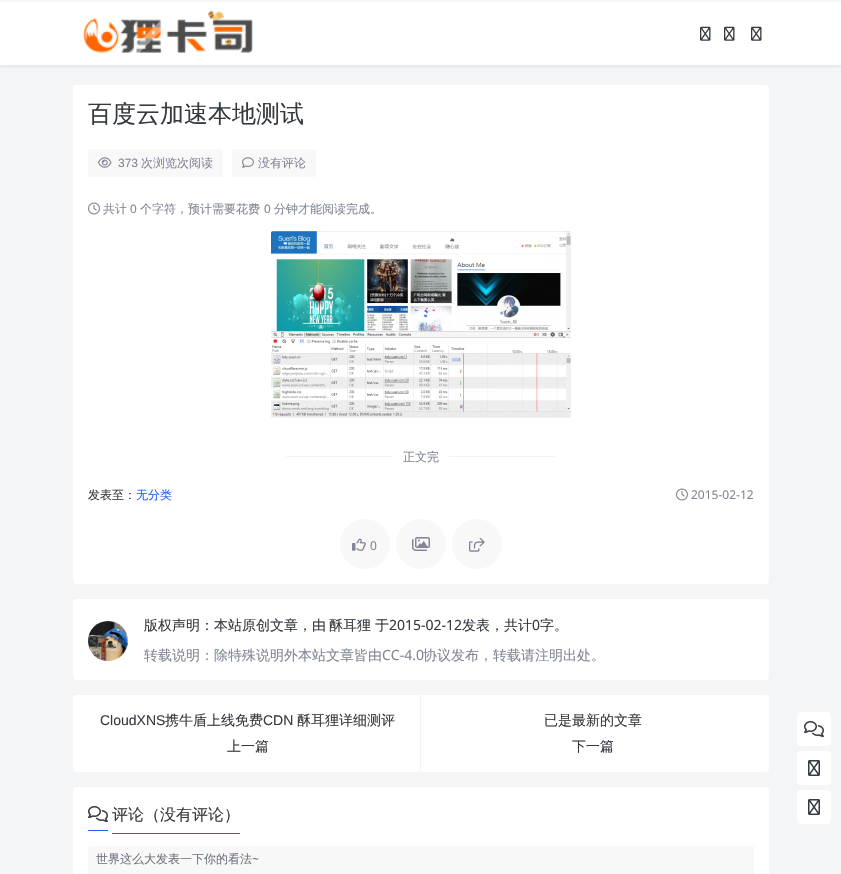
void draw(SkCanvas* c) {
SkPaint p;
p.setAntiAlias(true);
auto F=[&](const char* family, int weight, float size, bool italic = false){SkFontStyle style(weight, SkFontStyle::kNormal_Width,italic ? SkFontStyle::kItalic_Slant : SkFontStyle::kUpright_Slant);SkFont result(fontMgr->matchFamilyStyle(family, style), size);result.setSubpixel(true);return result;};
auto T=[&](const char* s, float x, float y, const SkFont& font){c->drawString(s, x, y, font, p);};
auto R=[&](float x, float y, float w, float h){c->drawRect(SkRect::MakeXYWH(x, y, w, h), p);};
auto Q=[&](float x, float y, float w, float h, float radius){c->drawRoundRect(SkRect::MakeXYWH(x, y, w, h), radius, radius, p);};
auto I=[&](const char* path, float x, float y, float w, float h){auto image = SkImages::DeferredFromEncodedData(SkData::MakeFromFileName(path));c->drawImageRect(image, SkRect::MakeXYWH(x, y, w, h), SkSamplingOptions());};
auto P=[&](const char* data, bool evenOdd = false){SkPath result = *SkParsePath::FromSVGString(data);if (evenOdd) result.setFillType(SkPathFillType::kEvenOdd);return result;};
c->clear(0xfff3f5f7);
p.setColor(0xffffffff);
R(0,0,841,65);
c->save();
c->clipRect(SkRect::MakeXYWH(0,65,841,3));
p.setColor(0x12000000);
p.setMaskFilter(SkMaskFilter::MakeBlur(kNormal_SkBlurStyle, 2));
c->drawRect(SkRect::MakeXYWH(0,2,841,65),p);
p.setMaskFilter(nullptr);
c->restore();
I("1.png",83,10,170,43);
c->save();
c->clipRect(SkRect::MakeXYWH(73,0,190,65));
p.setColor(0x66ffffff);
c->drawPath(P("M106 75l127-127l6 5l-127 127z"),p);
c->restore();
I("2.png",700,26,11,15);
I("2.png",724,26,11,15);
I("2.png",751,26,11,15);
p.setColor(0xfff3f5f7);
Q(0,0,841,2,1);
p.setColor(0xffffffff);
Q(73,85,696,499,4);
auto f1 = F("WenQuanYi Zen Hei",500,24);
p.setColor(0xff343a40);
T("百度云加速本地测试",88,122,f1);
p.setColor(0xfff8f8f9);
Q(88,149,135,28,2);
I("3.png",98,157,14,11);
auto f2 = F("Liberation Sans",400,12);
p.setColor(0xff808695);
T("373",118,167,f2);
auto f3 = F("WenQuanYi Zen Hei",500,12);
T("次浏览次阅读",141,167,f3);
p.setColor(0xfff8f8f9);
Q(232,149,84,28,2);
I("4.png",242,157,12,11);
p.setColor(0xff808695);
T("没有评论",258,167,f3);
I("5.png",88,202,12,13);
T("共计",103,213,f3);
T("0",130,213,f2);
T("个字符，预计需要花费",140,213,f3);
T("0",264,213,f2);
T("分钟才能阅读完成。",274,213,f3);
I("6.png",271,231,300,187);
p.setColor(0xfff3f3f3);
R(286,456,107,1);
p.setColor(0xff808695);
T("正文完",403,461,f3);
p.setColor(0xfff3f3f3);
R(449,456,106,1);
p.setColor(0xff343a40);
T("发表至：",88,499,f3);
p.setColor(0xff1c60f3);
T("无分类",136,499,f3);
I("5.png",676,488,12,13);
auto f4 = F("Noto Sans",400,12);
p.setColor(0xff808695);
T("2015-02-12",691,499,f4);
p.setColor(0xfff8f8f9);
c->drawCircle(365,544,25,p);
I("7.png",352,538,14,13);
p.setColor(0xff808695);
T("0",370,550,f4);
p.setColor(0xfff8f8f9);
c->drawCircle(421,544,25,p);
I("8.png",412,537,18,14);
c->drawCircle(477,544,25,p);
I("9.png",469,537,16,15);
p.setColor(0xffffffff);
Q(73,599,696,81,4);
I("10.png",88,621,40,40);
auto f5 = F("WenQuanYi Zen Hei",500,14);
p.setColor(0xff343a40);
T("版权声明：本站原创文章，由",144,630,f5);
T("酥耳狸",329,630,f5);
T("于",375,630,f5);
auto f6 = F("Noto Sans",400,14);
T("2015-02-12",389,630,f6);
T("发表，共计",462,630,f5);
T("0",532,630,f6);
T("字。",540,630,f5);
p.setColor(0xff808695);
T("转载说明：除特殊说明外本站文章皆由",144,660,f5);
T("CC-4.0",382,660,f6);
T("协议发布，转载请注明出处。",423,660,f5);
p.setColor(0xffffffff);
Q(73,695,696,77,4);
p.setColor(0xfff3f3f3);
R(420,695,1,77);
auto f7 = F("Liberation Sans",400,14);
p.setColor(0xff343a40);
T("CloudXNS",100,725,f7);
T("携牛盾上线免费",165,725,f5);
T("CDN",263,725,f7);
T("酥耳狸详细测评",297,725,f5);
T("上一篇",227,751,f5);
T("已是最新的文章",544,725,f5);
T("下一篇",572,751,f5);
p.setColor(0xffffffff);
Q(73,787,696,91,4);
p.setColor(0xff1c60f3);
R(88,830,20,1);
R(112,833,128,1);
I("11.png",88,806,20,16);
auto f8 = F("WenQuanYi Zen Hei",500,16);
p.setColor(0xff343a40);
T("评论（没有评论）",112,820,f8);
p.setColor(0xfff8f8f9);
Q(88,846,666,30,2);
p.setColor(0xff6c757d);
T("世界这么大发表一下你的看法",96,863,f3);
T("~",252,863,f4);
p.setColor(0xffffffff);
Q(797,712,34,34,4);
I("11.png",804,721,20,16);
Q(797,751,34,34,4);
I("12.png",808,760,12,16);
Q(797,790,34,34,4);
I("12.png",808,799,12,16);
}
